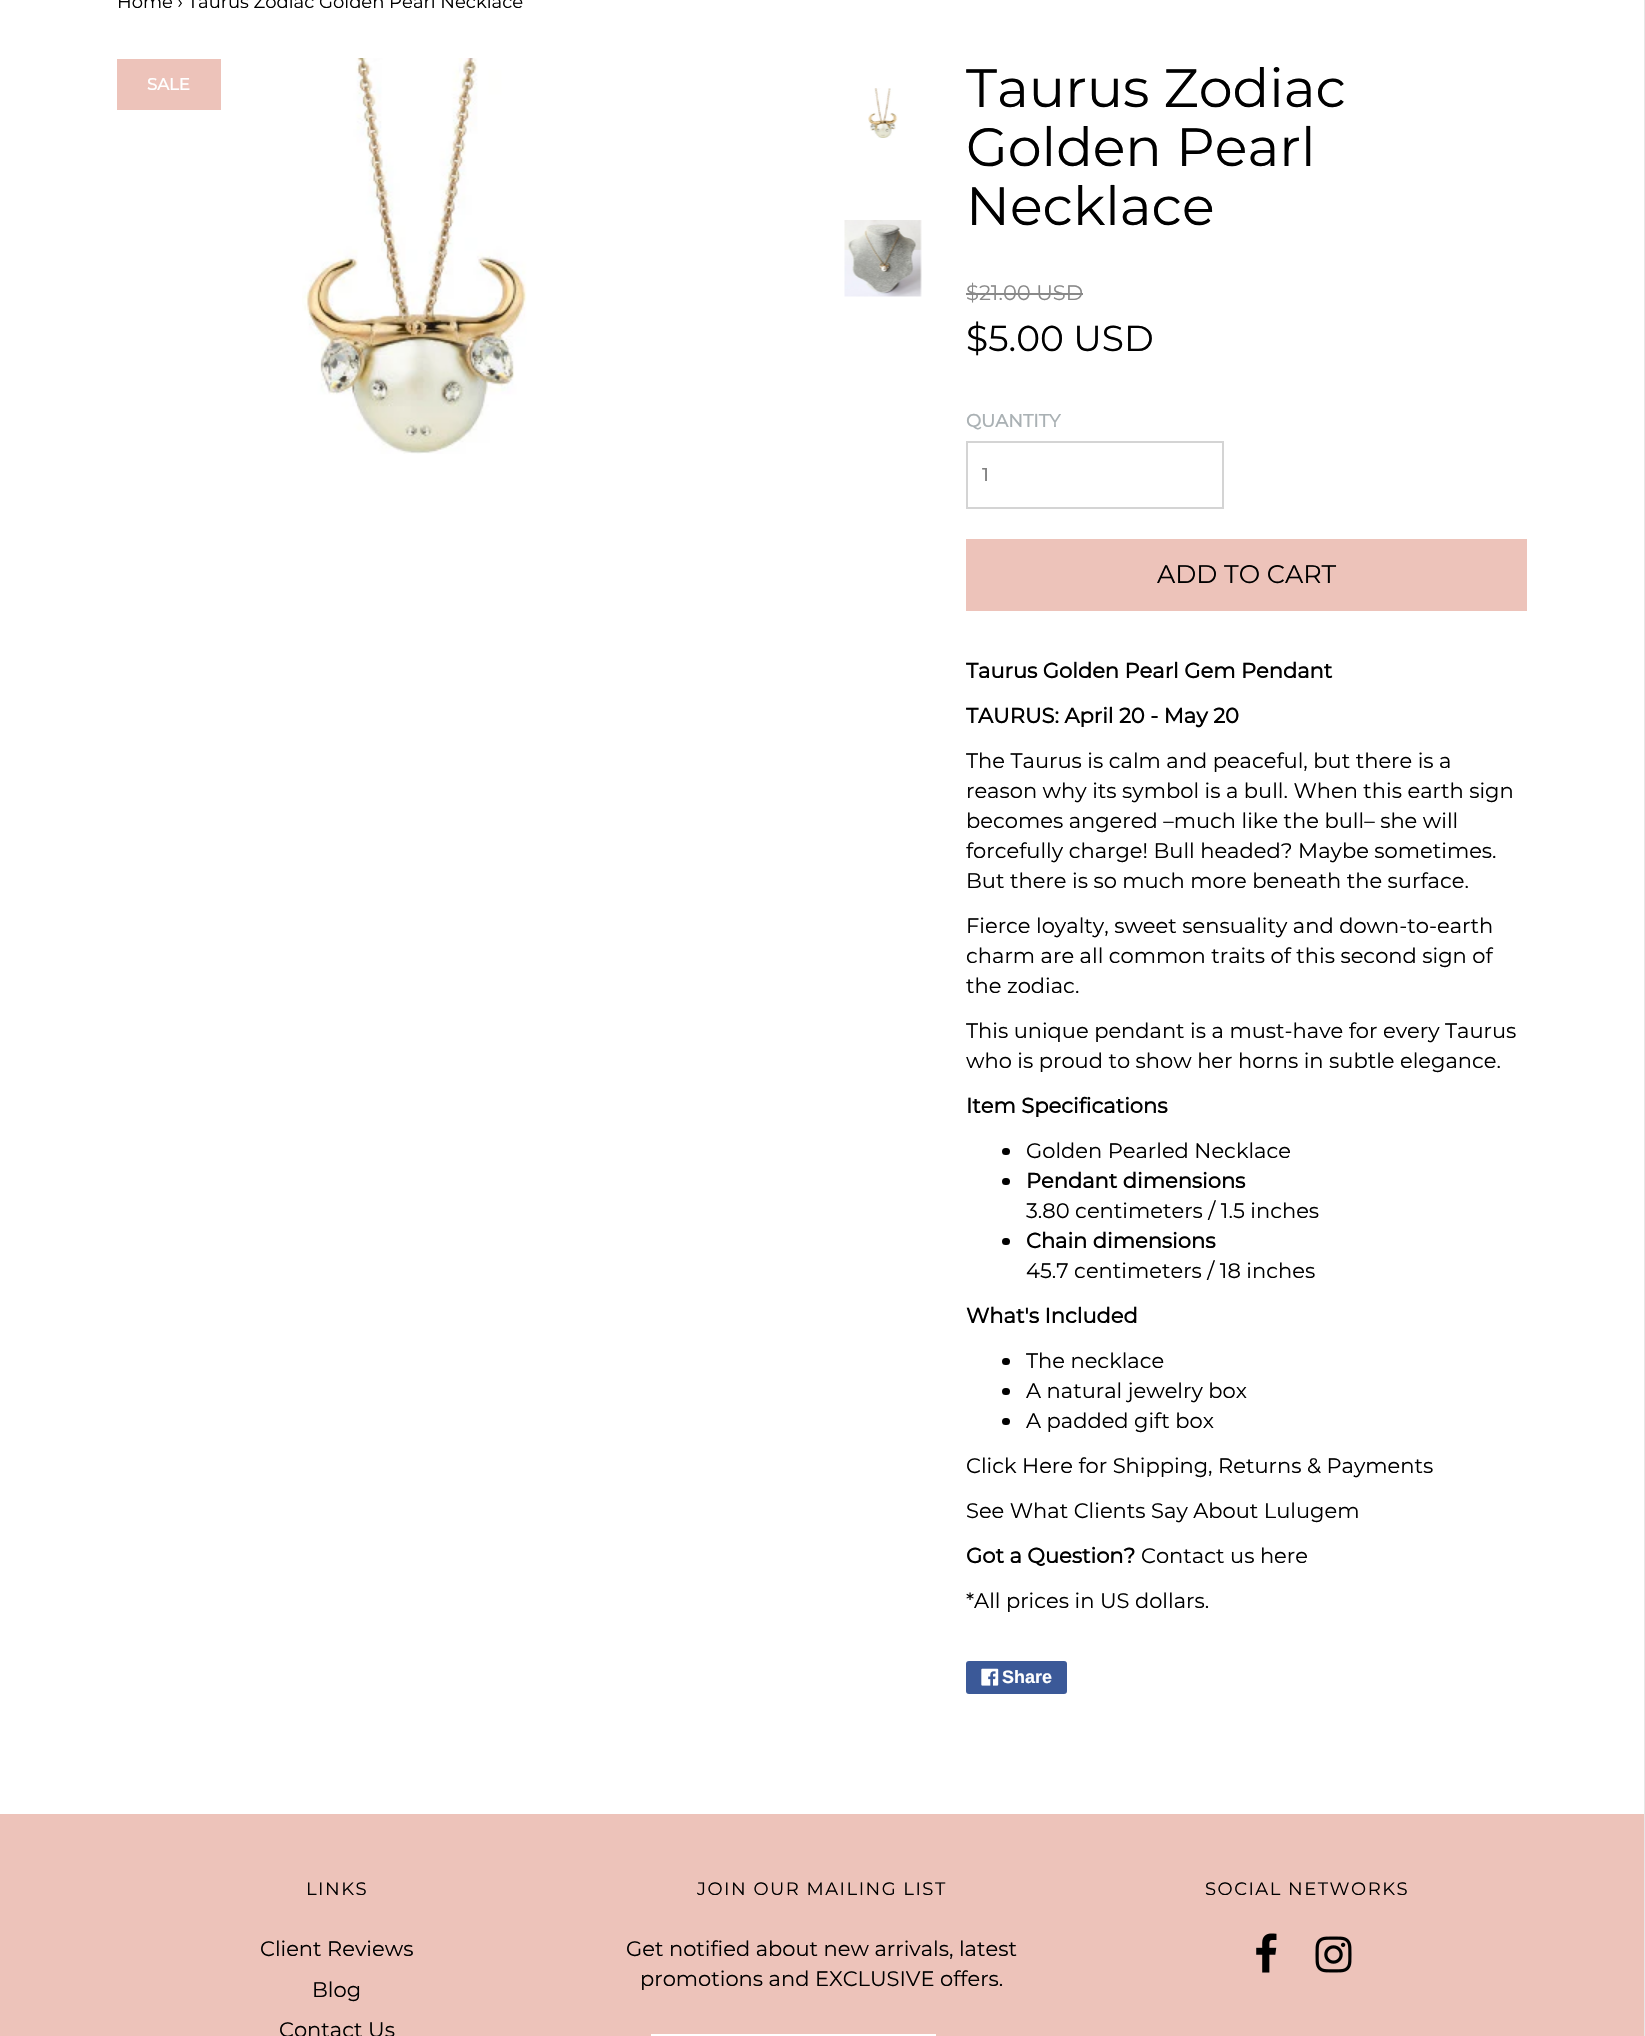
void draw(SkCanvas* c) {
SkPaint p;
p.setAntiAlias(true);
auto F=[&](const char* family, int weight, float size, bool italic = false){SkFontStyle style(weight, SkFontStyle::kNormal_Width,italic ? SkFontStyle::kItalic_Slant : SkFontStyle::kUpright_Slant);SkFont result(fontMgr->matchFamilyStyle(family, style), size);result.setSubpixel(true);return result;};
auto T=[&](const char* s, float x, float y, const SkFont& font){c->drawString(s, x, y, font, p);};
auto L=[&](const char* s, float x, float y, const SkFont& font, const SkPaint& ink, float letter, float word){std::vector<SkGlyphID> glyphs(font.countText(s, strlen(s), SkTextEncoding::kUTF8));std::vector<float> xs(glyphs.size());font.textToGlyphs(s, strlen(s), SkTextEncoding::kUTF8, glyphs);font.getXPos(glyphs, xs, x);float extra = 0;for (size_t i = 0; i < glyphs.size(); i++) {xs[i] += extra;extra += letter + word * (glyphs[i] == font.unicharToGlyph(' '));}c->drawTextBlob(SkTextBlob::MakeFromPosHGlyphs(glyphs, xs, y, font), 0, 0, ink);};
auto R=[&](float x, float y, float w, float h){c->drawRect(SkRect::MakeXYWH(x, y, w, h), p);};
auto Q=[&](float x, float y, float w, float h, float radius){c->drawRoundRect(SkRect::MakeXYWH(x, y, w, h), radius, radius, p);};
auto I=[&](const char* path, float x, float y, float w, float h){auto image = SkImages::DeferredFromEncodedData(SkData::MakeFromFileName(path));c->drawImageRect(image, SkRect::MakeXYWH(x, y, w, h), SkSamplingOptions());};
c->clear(0xffffffff);
p.setColor(0xffe6e6e6);
R(1644,0,1,2036);
auto f1 = F("Montserrat",100,18);
p.setColor(0xff000000);
T("Home › Taurus Zodiac Golden Pearl Necklace",117,8,f1);
p.setColor(0xffedc3ba);
R(117,59,104,51);
auto f2 = F("Montserrat",700,16.5);
p.setColor(0xffffffff);
T("SALE",147,90,f2);
I("1.png",302,58,225,396);
auto f3 = F("Montserrat",100,54);
p.setColor(0xff000000);
T("Taurus Zodiac",966,107,f3);
T("Golden Pearl",966,166,f3);
T("Necklace",966,225,f3);
auto f4 = F("Montserrat",100,21);
p.setColor(0xff898989);
T("$21.00 USD",966,300,f4);
R(966,293,117,2);
auto f5 = F("Montserrat",100,36);
p.setColor(0xff000000);
T("$5.00 USD",966,351,f5);
auto f6 = F("Montserrat",700,18);
p.setColor(0xffaab1b4);
T("QUANTITY",966,427,f6);
p.setStroke(true);
p.setStrokeWidth(2);
p.setColor(0xffd4d4d4);
c->drawRect(SkRect::MakeXYWH(967,442,256,66),p);
p.setStroke(false);
p.setColor(0xff808080);
T("1",982,481,f6);
p.setColor(0xffedc3ba);
R(966,539,561,72);
auto f7 = F("Montserrat",100,25.5);
p.setColor(0xff000000);
T("ADD TO CART",1157,583,f7);
auto f8 = F("Montserrat",700,21);
T("Taurus Golden Pearl Gem Pendant",966,678,f8);
T("TAURUS: April 20 - May 20",966,723,f8);
T("The Taurus is calm and peaceful, but there is a",966,768,f4);
T("reason why its symbol is a bull. When this earth sign",966,798,f4);
T("becomes angered –much like the bull– she will",966,828,f4);
T("forcefully charge! Bull headed? Maybe sometimes.",966,858,f4);
T("But there is so much more beneath the surface.",966,888,f4);
T("Fierce loyalty, sweet sensuality and down-to-earth",966,933,f4);
T("charm are all common traits of this second sign of",966,963,f4);
T("the zodiac.",966,993,f4);
T("This unique pendant is a must-have for every Taurus",966,1038,f4);
T("who is proud to show her horns in subtle elegance.",966,1068,f4);
T("Item Specifications",966,1113,f8);
Q(1002,1148,8,7,3.5);
T("Golden Pearled Necklace",1026,1158,f4);
Q(1002,1178,8,7,3.5);
T("Pendant dimensions",1026,1188,f8);
T("3.80 centimeters / 1.5 inches",1026,1218,f4);
Q(1002,1238,8,7,3.5);
T("Chain dimensions",1026,1248,f8);
T("45.7 centimeters / 18 inches",1026,1278,f4);
T("What's Included",966,1323,f8);
Q(1002,1358,8,7,3.5);
T("The necklace",1026,1368,f4);
Q(1002,1388,8,7,3.5);
T("A natural jewelry box",1026,1398,f4);
Q(1002,1418,8,7,3.5);
T("A padded gift box",1026,1428,f4);
T("Click Here for Shipping, Returns & Payments",966,1473,f4);
T("See What Clients Say About Lulugem",966,1518,f4);
T("Got a Question?",966,1563,f8);
T("Contact us here",1141,1563,f4);
T("*All prices in US dollars.",966,1608,f4);
p.setColor(0xff3b5998);
Q(966,1661,101,33,3);
I("2.png",981,1668,18,18);
auto f9 = F("Liberation Sans",700,18);
p.setColor(0xffffffff);
T("Share",1002,1683,f9);
I("3.png",868,88,30,50);
I("4.png",844,220,78,77);
p.setColor(0xffedc3ba);
R(0,1814,1644,222);
p.setColor(0xff000000);
L("LINKS",306,1895,f1,p,1.5,0);
T("Client Reviews",260,1956,f4);
T("Blog",312,1997,f4);
T("Contact Us",279,2037,f4);
L("JOIN OUR MAILING LIST",697,1895,f1,p,1.5,0);
T("Get notified about new arrivals, latest",626,1956,f4);
T("promotions and EXCLUSIVE offers.",640,1986,f4);
p.setColor(0xffffffff);
R(651,2034,285,2);
p.setColor(0xff000000);
L("SOCIAL NETWORKS",1205,1895,f1,p,1.5,0);
I("5.png",1256,1933,21,40);
I("6.png",1315,1936,37,37);
}
